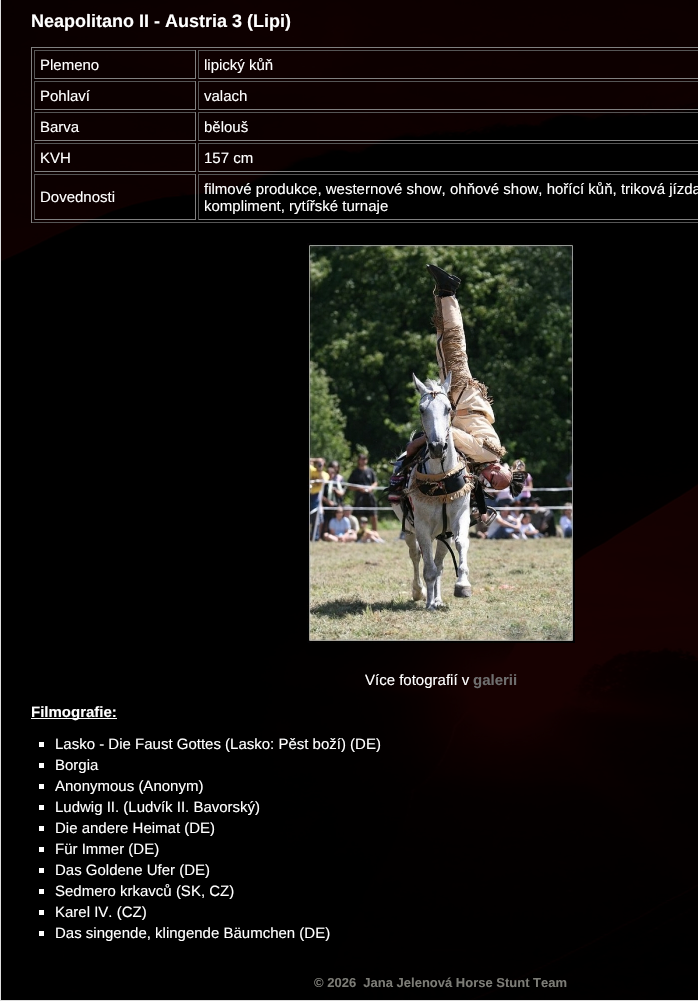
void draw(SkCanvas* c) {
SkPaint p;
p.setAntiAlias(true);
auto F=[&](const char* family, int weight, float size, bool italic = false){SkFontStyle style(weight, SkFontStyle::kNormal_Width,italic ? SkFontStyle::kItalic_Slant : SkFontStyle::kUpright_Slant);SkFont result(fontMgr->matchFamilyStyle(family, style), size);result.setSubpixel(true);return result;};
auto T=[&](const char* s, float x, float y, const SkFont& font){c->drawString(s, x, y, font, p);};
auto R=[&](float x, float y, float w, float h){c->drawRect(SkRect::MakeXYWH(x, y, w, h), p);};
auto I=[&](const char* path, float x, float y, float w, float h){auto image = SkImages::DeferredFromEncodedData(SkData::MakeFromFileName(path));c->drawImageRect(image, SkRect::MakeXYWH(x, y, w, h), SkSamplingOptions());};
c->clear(0xffffffff);
I("1.png",1,0,697,1000);
p.setStroke(true);
p.setStrokeWidth(1);
p.setColor(0xffdddddd);
c->drawRect(SkRect::MakeXYWH(.5,-.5,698,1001),p);
auto f1 = F("Liberation Sans",700,18);
p.setStroke(false);
p.setColor(0xffffffff);
T("Neapolitano II - Austria 3 (Lipi)",31,27,f1);
p.setColor(0xff808080);
R(31,47,667,1);
p.setColor(0xff555555);
R(31,222,667,1);
p.setColor(0xff808080);
R(31,47,1,176);
p.setColor(0xff555555);
R(34,50,162,1);
p.setColor(0xff808080);
R(195,50,1,29);
R(34,78,162,1);
p.setColor(0xff555555);
R(34,50,1,29);
auto f2 = F("Liberation Sans",400,15);
p.setColor(0xffffffff);
T("Plemeno",40,70,f2);
p.setColor(0xff555555);
R(198,50,500,1);
p.setColor(0xff808080);
R(198,78,500,1);
p.setColor(0xff555555);
R(198,50,1,29);
p.setColor(0xffffffff);
T("lipický kůň",204,70,f2);
p.setColor(0xff555555);
R(34,81,162,1);
p.setColor(0xff808080);
R(195,81,1,29);
R(34,109,162,1);
p.setColor(0xff555555);
R(34,81,1,29);
p.setColor(0xffffffff);
T("Pohlaví",40,101,f2);
p.setColor(0xff555555);
R(198,81,500,1);
p.setColor(0xff808080);
R(198,109,500,1);
p.setColor(0xff555555);
R(198,81,1,29);
p.setColor(0xffffffff);
T("valach",204,101,f2);
p.setColor(0xff555555);
R(34,112,162,1);
p.setColor(0xff808080);
R(195,112,1,29);
R(34,140,162,1);
p.setColor(0xff555555);
R(34,112,1,29);
p.setColor(0xffffffff);
T("Barva",40,132,f2);
p.setColor(0xff555555);
R(198,112,500,1);
p.setColor(0xff808080);
R(198,140,500,1);
p.setColor(0xff555555);
R(198,112,1,29);
p.setColor(0xffffffff);
T("bělouš",204,132,f2);
p.setColor(0xff555555);
R(34,143,162,1);
p.setColor(0xff808080);
R(195,143,1,29);
R(34,171,162,1);
p.setColor(0xff555555);
R(34,143,1,29);
p.setColor(0xffffffff);
T("KVH",40,163,f2);
p.setColor(0xff555555);
R(198,143,500,1);
p.setColor(0xff808080);
R(198,171,500,1);
p.setColor(0xff555555);
R(198,143,1,29);
p.setColor(0xffffffff);
T("157 cm",204,163,f2);
p.setColor(0xff555555);
R(34,174,162,1);
p.setColor(0xff808080);
R(195,174,1,46);
R(34,219,162,1);
p.setColor(0xff555555);
R(34,174,1,46);
p.setColor(0xffffffff);
T("Dovednosti",40,202,f2);
p.setColor(0xff555555);
R(198,174,500,1);
p.setColor(0xff808080);
R(198,219,500,1);
p.setColor(0xff555555);
R(198,174,1,46);
p.setColor(0xffffffff);
T("filmové produkce, westernové show, ohňové show, hořící kůň, triková jízda",204,194,f2);
T("kompliment, rytířské turnaje",204,211,f2);
I("2.png",307,243,268,400);
T("Více fotografií v",365,685,f2);
auto f3 = F("Liberation Sans",700,15);
p.setColor(0xff6e6e6e);
T("galerii",473,685,f3);
p.setColor(0xffffffff);
R(31,718,86,1);
T("Filmografie:",31,717,f3);
R(39,742,5,5);
T("Lasko - Die Faust Gottes (Lasko: Pěst boží) (DE)",55,749,f2);
R(39,763,5,5);
T("Borgia",55,770,f2);
R(39,784,5,5);
T("Anonymous (Anonym)",55,791,f2);
R(39,805,5,5);
T("Ludwig II. (Ludvík II. Bavorský)",55,812,f2);
R(39,826,5,5);
T("Die andere Heimat (DE)",55,833,f2);
R(39,847,5,5);
T("Für Immer (DE)",55,854,f2);
R(39,868,5,5);
T("Das Goldene Ufer (DE)",55,875,f2);
R(39,889,5,5);
T("Sedmero krkavců (SK, CZ)",55,896,f2);
R(39,910,5,5);
T("Karel IV. (CZ)",55,917,f2);
R(39,931,5,5);
T("Das singende, klingende Bäumchen (DE)",55,938,f2);
auto f4 = F("Liberation Sans",700,13);
p.setColor(0xff7c7c76);
T("© 2026  Jana Jelenová Horse Stunt Team",314,987,f4);
}
